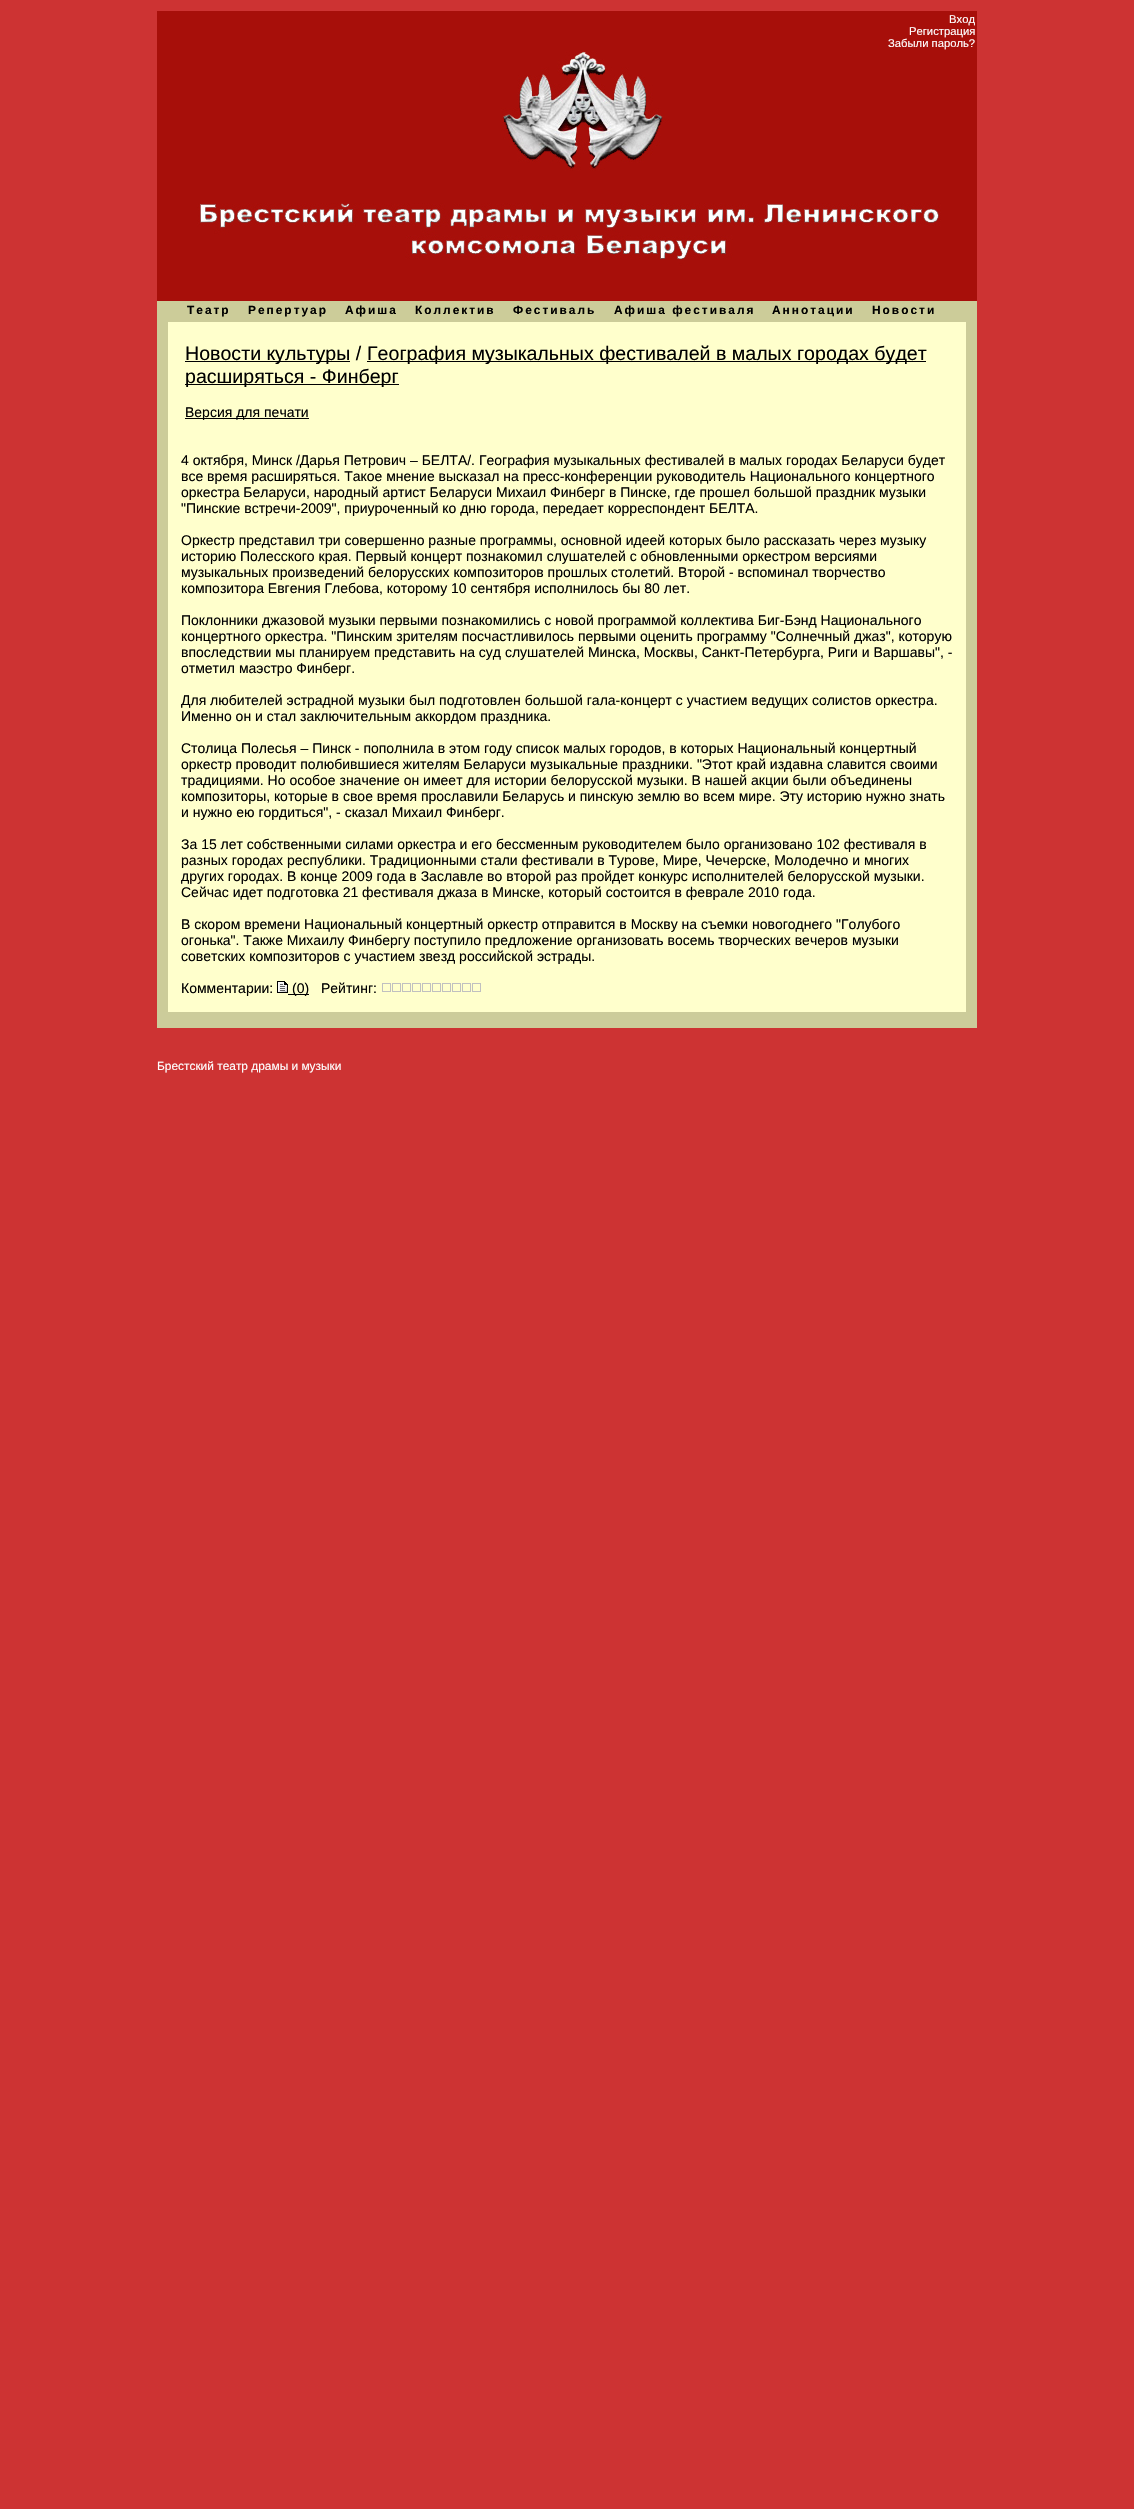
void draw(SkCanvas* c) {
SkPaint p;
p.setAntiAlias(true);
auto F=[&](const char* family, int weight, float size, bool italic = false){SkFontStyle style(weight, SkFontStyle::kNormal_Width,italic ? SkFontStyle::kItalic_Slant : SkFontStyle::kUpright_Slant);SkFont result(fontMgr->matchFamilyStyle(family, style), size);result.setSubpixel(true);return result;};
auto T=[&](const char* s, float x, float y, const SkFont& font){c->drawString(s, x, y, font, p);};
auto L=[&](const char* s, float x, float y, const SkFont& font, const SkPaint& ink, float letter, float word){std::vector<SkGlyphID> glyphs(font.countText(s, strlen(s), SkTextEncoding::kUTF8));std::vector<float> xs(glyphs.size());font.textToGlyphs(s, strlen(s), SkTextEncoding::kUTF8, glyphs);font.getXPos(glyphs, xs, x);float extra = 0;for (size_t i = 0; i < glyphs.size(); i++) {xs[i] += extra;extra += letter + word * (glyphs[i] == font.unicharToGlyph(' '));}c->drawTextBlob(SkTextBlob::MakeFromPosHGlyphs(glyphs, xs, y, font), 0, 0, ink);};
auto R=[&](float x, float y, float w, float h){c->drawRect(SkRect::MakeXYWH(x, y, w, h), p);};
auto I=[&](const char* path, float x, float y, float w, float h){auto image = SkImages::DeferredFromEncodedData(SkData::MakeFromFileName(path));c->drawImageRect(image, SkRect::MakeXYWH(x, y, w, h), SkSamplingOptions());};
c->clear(0xffcd3333);
p.setColor(0xffa70f0a);
R(157,11,820,40);
auto f1 = F("Liberation Sans",400,11.25);
p.setColor(0xffffffff);
T("Вход",949,23,f1);
T("Регистрация",909,35,f1);
T("Забыли пароль?",888,47,f1);
I("1.png",157,51,820,250);
p.setColor(0xffcccc99);
R(157,301,820,21);
auto f2 = F("Liberation Sans",700,11.9);
p.setColor(0xff000000);
L("Театр",187,314,f2,p,2,0);
L("Репертуар",248,314,f2,p,2,0);
L("Афиша",345,314,f2,p,2,0);
L("Коллектив",415,314,f2,p,2,0);
L("Фестиваль",513,314,f2,p,2,0);
L("Афиша фестиваля",614,314,f2,p,2,0);
L("Аннотации",772,314,f2,p,2,0);
L("Новости",872,314,f2,p,2,0);
I("2.png",157,322,820,78);
R(185,361,165,1);
auto f3 = F("Liberation Sans",400,19.6);
T("Новости культуры /",185,360,f3);
R(367,361,559,1);
T("География музыкальных фестивалей в малых городах будет",367,360,f3);
R(185,384,214,1);
T("расширяться - Финберг",185,383,f3);
I("3.png",157,400,820,36);
R(185,418,124,1);
auto f4 = F("Liberation Sans",400,14);
T("Версия для печати",185,417,f4);
I("4.png",157,436,820,576);
T("4 октября, Минск /Дарья Петрович – БЕЛТА/. География музыкальных фестивалей в малых городах Беларуси будет",181,465,f4);
T("все время расширяться. Такое мнение высказал на пресс-конференции руководитель Национального концертного",181,481,f4);
T("оркестра Беларуси, народный артист Беларуси Михаил Финберг в Пинске, где прошел большой праздник музыки",181,497,f4);
T("\"Пинские встречи-2009\", приуроченный ко дню города, передает корреспондент БЕЛТА.",181,513,f4);
T("Оркестр представил три совершенно разные программы, основной идеей которых было рассказать через музыку",181,545,f4);
T("историю Полесского края. Первый концерт познакомил слушателей с обновленными оркестром версиями",181,561,f4);
T("музыкальных произведений белорусских композиторов прошлых столетий. Второй - вспоминал творчество",181,577,f4);
T("композитора Евгения Глебова, которому 10 сентября исполнилось бы 80 лет.",181,593,f4);
T("Поклонники джазовой музыки первыми познакомились с новой программой коллектива Биг-Бэнд Национального",181,625,f4);
T("концертного оркестра. \"Пинским зрителям посчастливилось первыми оценить программу \"Солнечный джаз\", которую",181,641,f4);
T("впоследствии мы планируем представить на суд слушателей Минска, Москвы, Санкт-Петербурга, Риги и Варшавы\", -",181,657,f4);
T("отметил маэстро Финберг.",181,673,f4);
T("Для любителей эстрадной музыки был подготовлен большой гала-концерт с участием ведущих солистов оркестра.",181,705,f4);
T("Именно он и стал заключительным аккордом праздника.",181,721,f4);
T("Столица Полесья – Пинск - пополнила в этом году список малых городов, в которых Национальный концертный",181,753,f4);
T("оркестр проводит полюбившиеся жителям Беларуси музыкальные праздники. \"Этот край издавна славится своими",181,769,f4);
T("традициями. Но особое значение он имеет для истории белорусской музыки. В нашей акции были объединены",181,785,f4);
T("композиторы, которые в свое время прославили Беларусь и пинскую землю во всем мире. Эту историю нужно знать",181,801,f4);
T("и нужно ею гордиться\", - сказал Михаил Финберг.",181,817,f4);
T("За 15 лет собственными силами оркестра и его бессменным руководителем было организовано 102 фестиваля в",181,849,f4);
T("разных городах республики. Традиционными стали фестивали в Турове, Мире, Чечерске, Молодечно и многих",181,865,f4);
T("других городах. В конце 2009 года в Заславле во второй раз пройдет конкурс исполнителей белорусской музыки.",181,881,f4);
T("Сейчас идет подготовка 21 фестиваля джаза в Минске, который состоится в феврале 2010 года.",181,897,f4);
T("В скором времени Национальный концертный оркестр отправится в Москву на съемки новогоднего \"Голубого",181,929,f4);
T("огонька\". Также Михаилу Финбергу поступило предложение организовать восемь творческих вечеров музыки",181,945,f4);
T("советских композиторов с участием звезд российской эстрады.",181,961,f4);
T("Комментарии:",181,993,f4);
I("5.png",277,981,11,12);
R(288,994,21,1);
T("(0)",292,993,f4);
T("Рейтинг:",321,993,f4);
I("6.png",382,983,99,9);
p.setColor(0xffcccc9a);
R(157,1012,820,16);
auto f5 = F("Liberation Sans",400,11.9);
p.setColor(0xffffffff);
T("Брестский театр драмы и музыки",157,1070,f5);
}
